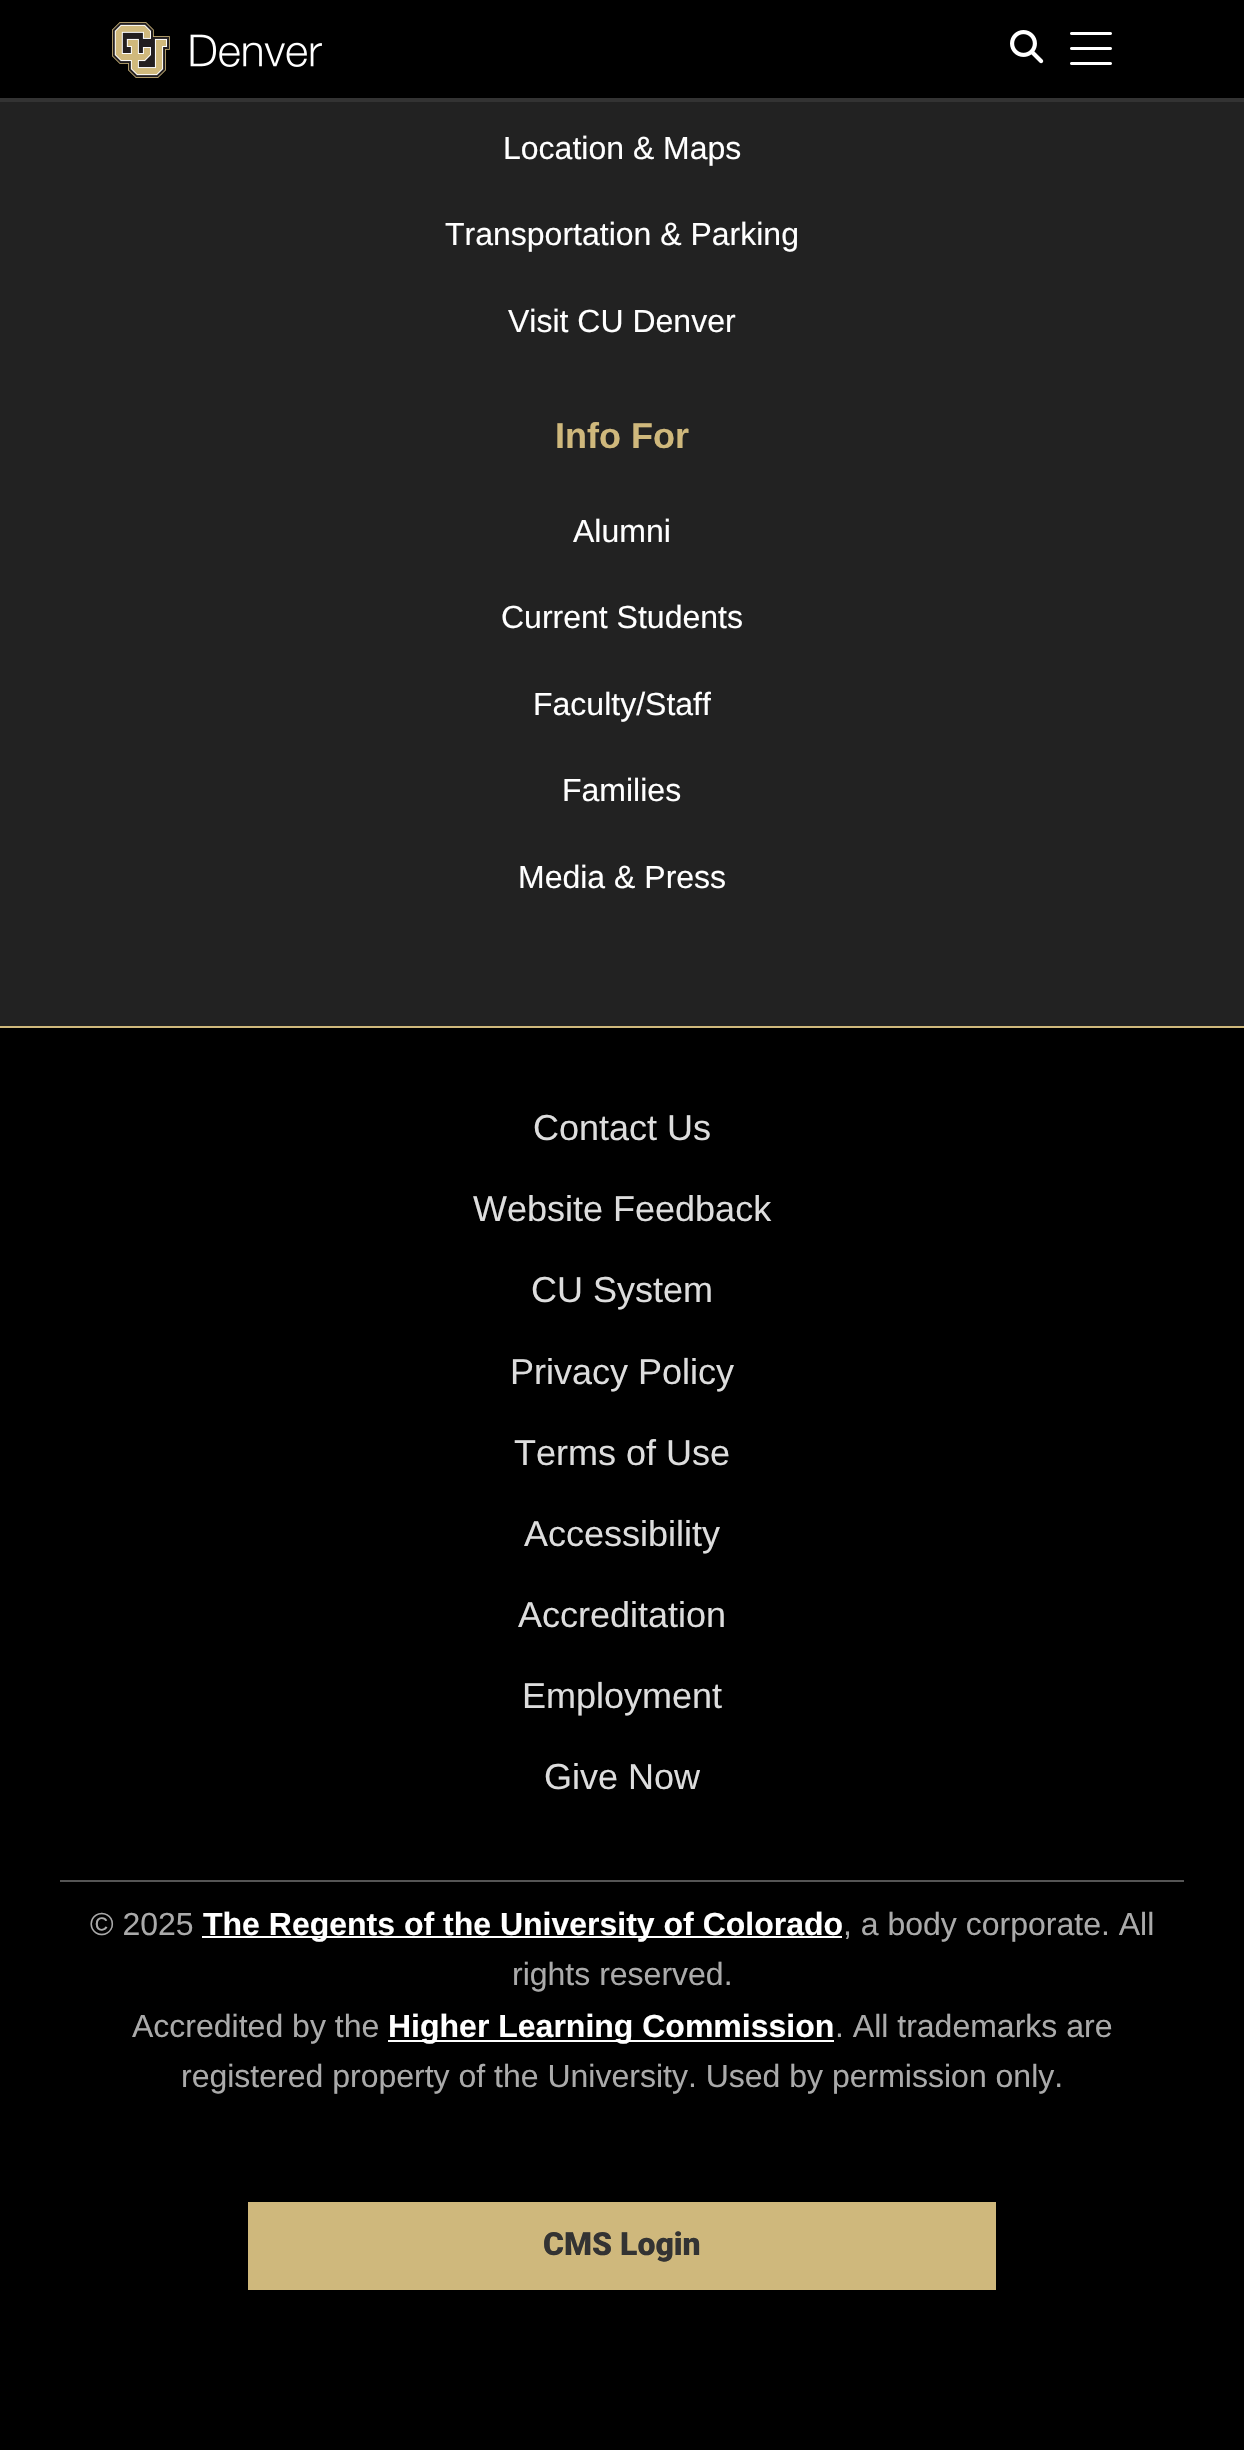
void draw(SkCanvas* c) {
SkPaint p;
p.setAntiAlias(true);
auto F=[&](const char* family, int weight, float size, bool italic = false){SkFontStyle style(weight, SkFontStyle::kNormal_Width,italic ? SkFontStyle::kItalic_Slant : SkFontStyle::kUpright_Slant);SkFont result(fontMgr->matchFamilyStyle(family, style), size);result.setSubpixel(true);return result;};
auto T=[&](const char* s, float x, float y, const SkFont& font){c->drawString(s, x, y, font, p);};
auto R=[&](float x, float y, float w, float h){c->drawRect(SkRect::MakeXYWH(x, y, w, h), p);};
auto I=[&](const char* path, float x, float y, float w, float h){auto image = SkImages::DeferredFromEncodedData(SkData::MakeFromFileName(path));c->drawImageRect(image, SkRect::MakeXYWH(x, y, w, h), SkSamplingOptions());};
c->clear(0xff222222);
p.setColor(0xff000000);
R(0,0,1244,98);
I("1.png",112,22,210,56);
I("2.png",1010,30,34,34);
I("3.png",1070,32,42,33);
p.setColor(0xff333333);
R(0,98,1244,4);
auto f1 = F("Liberation Sans",400,32);
p.setColor(0xffffffff);
T("Location & Maps",503,159,f1);
T("Transportation & Parking",445,245,f1);
T("Visit CU Denver",508,332,f1);
auto f2 = F("Liberation Sans",700,36);
p.setColor(0xffcfb87c);
T("Info For",555,448,f2);
p.setColor(0xffffffff);
T("Alumni",573,542,f1);
T("Current Students",501,628,f1);
T("Faculty/Staff",533,715,f1);
T("Families",562,801,f1);
T("Media & Press",518,888,f1);
p.setColor(0xff000000);
R(0,1028,1244,1422);
p.setColor(0xffcfb87c);
R(0,1026,1244,2);
auto f3 = F("Liberation Sans",400,36);
p.setColor(0xffdddddd);
T("Contact Us",533,1140,f3);
T("Website Feedback",473,1221,f3);
T("CU System",531,1302,f3);
T("Privacy Policy",510,1384,f3);
T("Terms of Use",514,1465,f3);
T("Accessibility",524,1546,f3);
T("Accreditation",518,1627,f3);
T("Employment",522,1708,f3);
T("Give Now",544,1789,f3);
p.setColor(0xff555555);
R(60,1880,1124,2);
p.setColor(0xffaaaaaa);
T("© 2025",90,1935,f1);
p.setColor(0xffffffff);
R(202,1936,640,2);
auto f4 = F("Liberation Sans",700,32);
T("The Regents of the University of Colorado",203,1935,f4);
p.setColor(0xffaaaaaa);
T(", a body corporate. All",843,1935,f1);
T("rights reserved.",512,1985,f1);
T("Accredited by the",132,2037,f1);
p.setColor(0xffffffff);
R(388,2040,446,2);
T("Higher Learning Commission",388,2037,f4);
p.setColor(0xffaaaaaa);
T(". All trademarks are",835,2037,f1);
T("registered property of the University. Used by permission only.",181,2087,f1);
p.setColor(0xffcfb87c);
R(248,2202,748,88);
auto f5 = F("Roboto",900,32);
p.setColor(0xff333333);
T("CMS Login",543,2255,f5);
}
